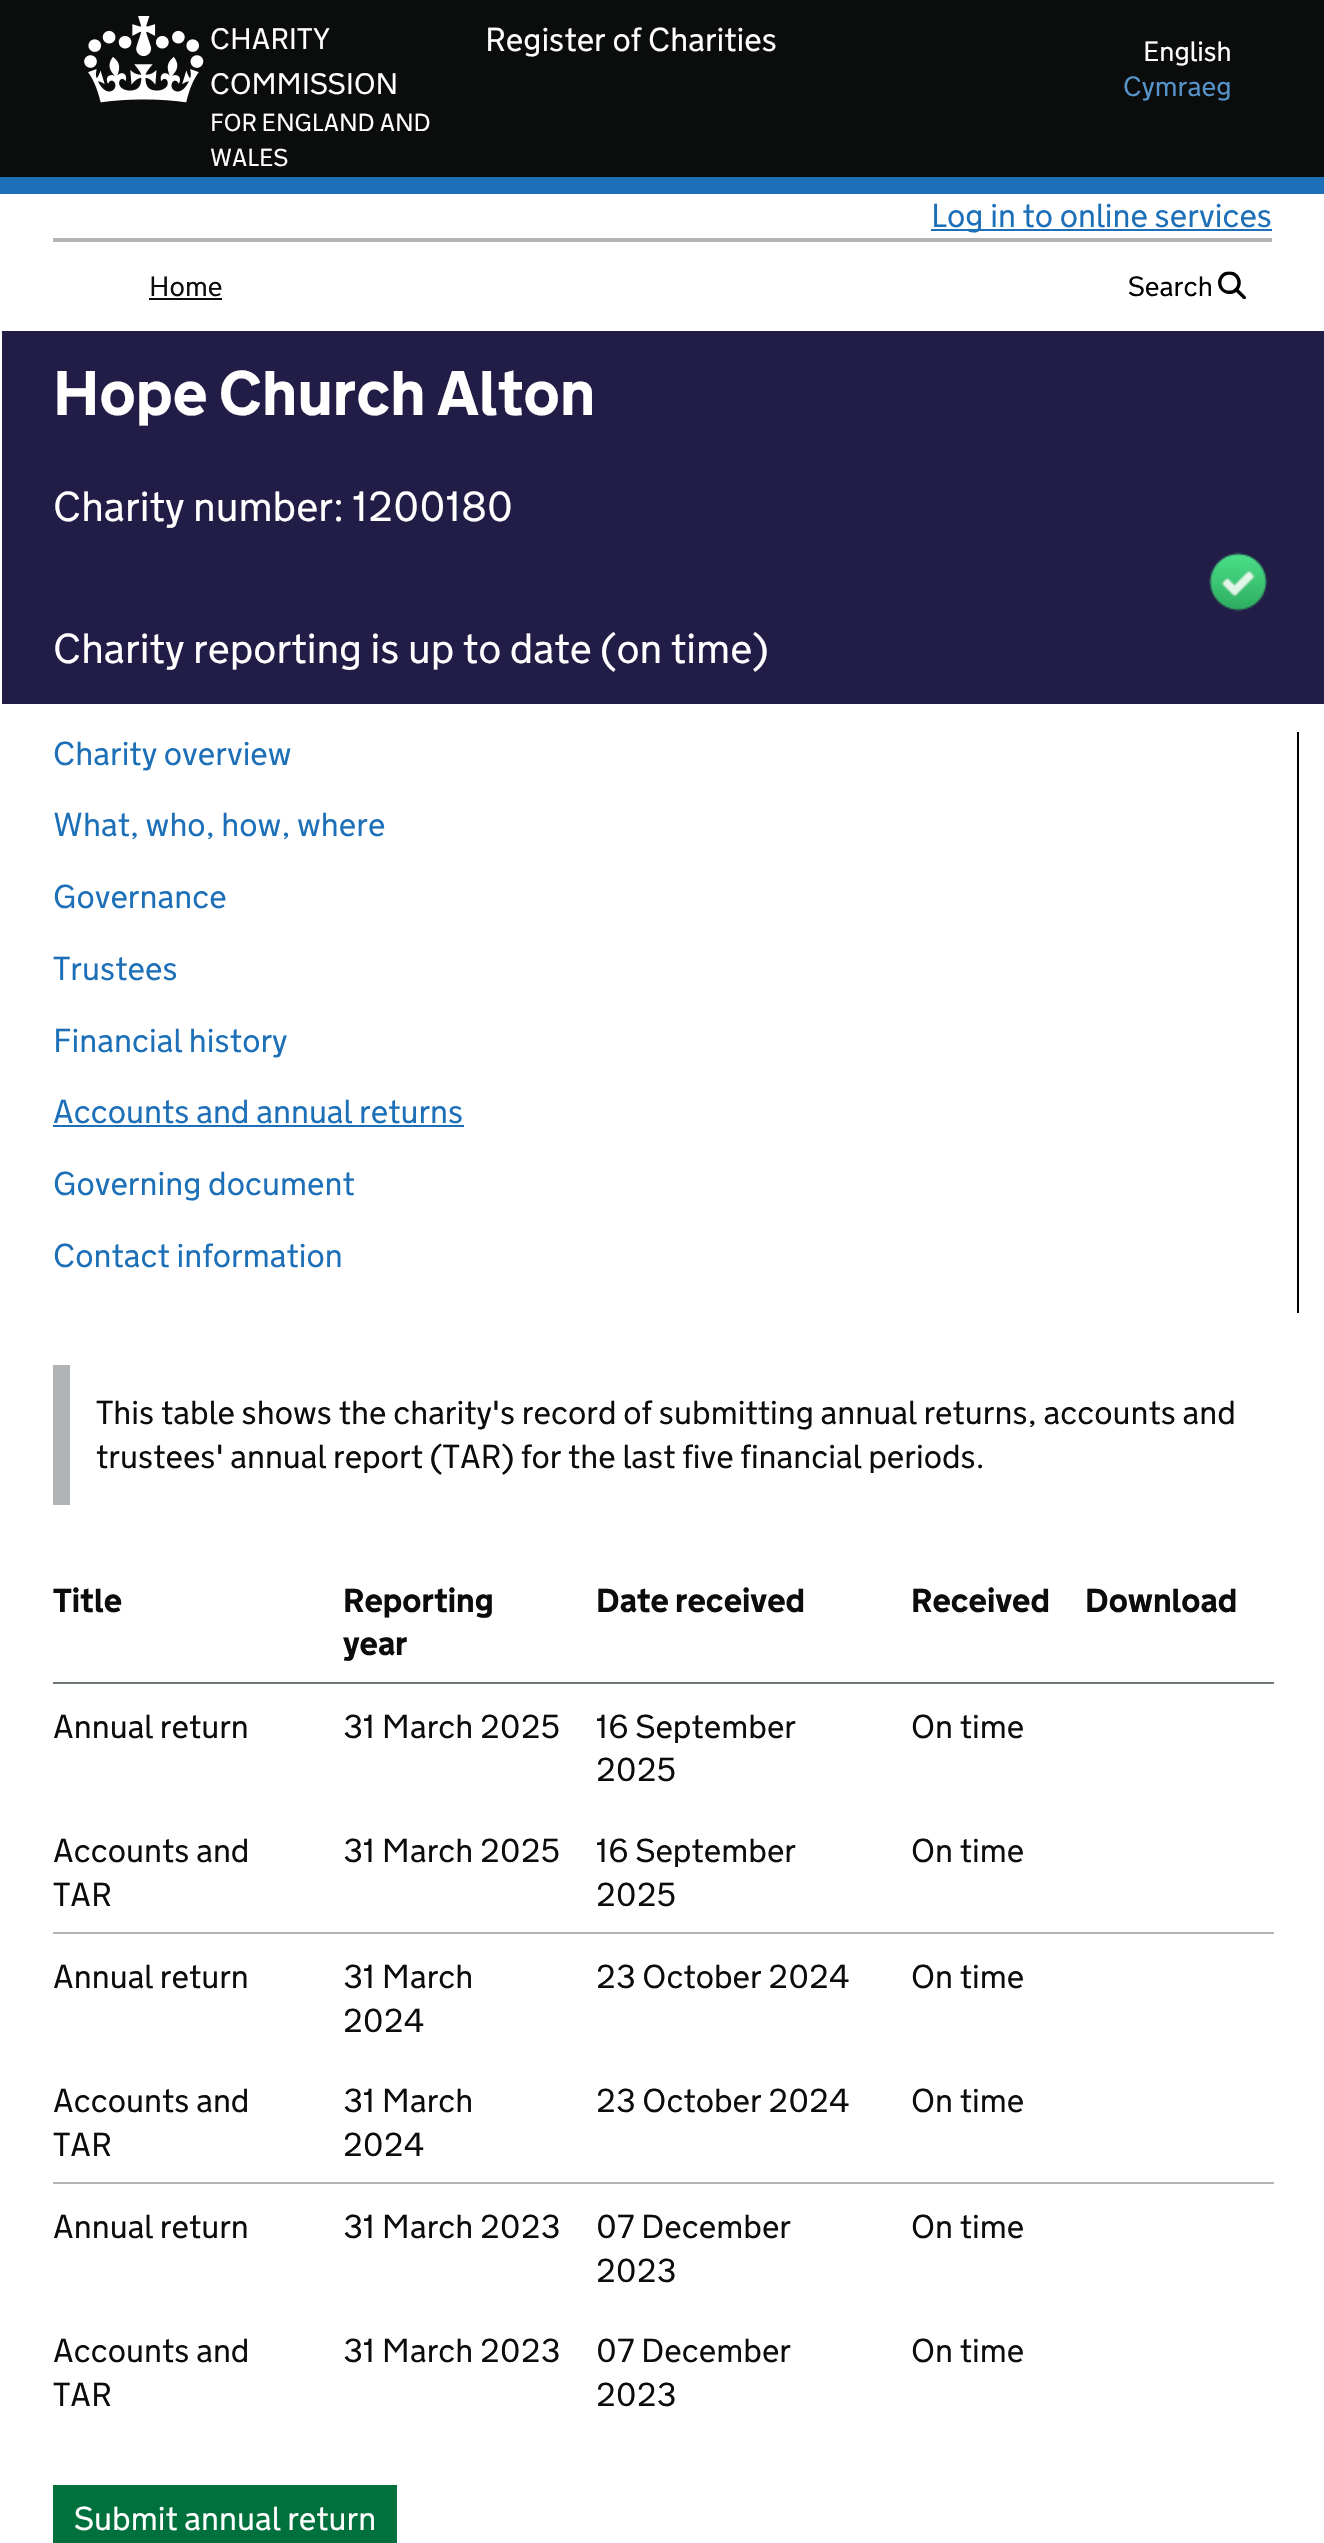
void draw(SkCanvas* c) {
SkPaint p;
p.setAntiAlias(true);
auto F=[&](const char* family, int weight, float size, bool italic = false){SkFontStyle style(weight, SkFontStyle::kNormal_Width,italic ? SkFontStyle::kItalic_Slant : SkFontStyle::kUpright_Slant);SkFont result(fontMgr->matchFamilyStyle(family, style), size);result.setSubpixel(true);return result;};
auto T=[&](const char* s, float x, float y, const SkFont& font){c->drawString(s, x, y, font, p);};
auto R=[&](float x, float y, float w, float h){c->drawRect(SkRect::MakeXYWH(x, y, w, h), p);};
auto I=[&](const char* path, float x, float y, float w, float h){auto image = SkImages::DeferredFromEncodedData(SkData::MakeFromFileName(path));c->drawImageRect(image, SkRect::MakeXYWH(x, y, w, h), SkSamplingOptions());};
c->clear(0xffffffff);
p.setColor(0xff0b0c0c);
R(0,0,1324,177);
p.setColor(0xff1d70b8);
R(0,177,1324,17);
I("1.png",84,16,120,87);
auto f1 = F("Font",300,29.75);
p.setColor(0xffffffff);
T("CHARITY",210,49,f1);
T("COMMISSION",210,94,f1);
auto f2 = F("Font",300,24.5);
T("FOR ENGLAND AND",210,131,f2);
T("WALES",210,166,f2);
auto f3 = F("Font",300,33.25);
T("Register of Charities",485,51,f3);
auto f4 = F("Font",300,28);
T("English",1143,61,f4);
p.setColor(0xff5694ca);
T("Cymraeg",1123,96,f4);
p.setColor(0xffb1b4b6);
R(53,238,1219,4);
p.setColor(0xff1d70b8);
R(931,229,341,2);
T("Log in to online services",931,227,f3);
p.setColor(0xff0b0c0c);
T("Home",149,296,f4);
R(149,298,73,2);
p.setColor(0xff000000);
T("Search",1128,296,f4);
I("2.png",1218,271,28,28);
p.setColor(0xff211d47);
R(2,331,1322,373);
auto f5 = F("Font",700,63);
p.setColor(0xffffffff);
T("Hope Church Alton",53,415,f5);
auto f6 = F("Font",300,42);
T("Charity number: 1200180",53,521,f6);
I("3.png",1209,552,59,60);
T("Charity reporting is up to date (on time)",53,663,f6);
p.setColor(0xff000000);
R(1297,732,2,581);
p.setColor(0xff1d70b8);
T("Charity overview",53,765,f3);
T("What, who, how, where",53,836,f3);
T("Governance",53,908,f3);
T("Trustees",53,980,f3);
T("Financial history",53,1052,f3);
T("Accounts and annual returns",53,1123,f3);
R(53,1125,411,2);
T("Governing document",53,1195,f3);
T("Contact information",53,1267,f3);
p.setColor(0xffb1b4b6);
R(53,1365,17,140);
p.setColor(0xff0b0c0c);
T("This table shows the charity's record of submitting annual returns, accounts and",96,1424,f3);
T("trustees' annual report (TAR) for the last five financial periods.",96,1468,f3);
auto f7 = F("Font",700,33.25);
T("Title",53,1612,f7);
T("Reporting",343,1612,f7);
T("year",343,1655,f7);
T("Date received",596,1612,f7);
T("Received",911,1612,f7);
p.setColor(0xff6f777b);
R(53,1682,1221,2);
p.setColor(0xff0b0c0c);
T("Download",1085,1612,f7);
T("Annual return",53,1738,f3);
T("31 March 2025",343,1738,f3);
T("16 September",596,1738,f3);
T("2025",596,1781,f3);
T("On time",911,1738,f3);
T("Accounts and",53,1862,f3);
T("TAR",53,1906,f3);
T("31 March 2025",343,1862,f3);
T("16 September",596,1862,f3);
T("2025",596,1906,f3);
T("On time",911,1862,f3);
p.setColor(0xffb1b4b6);
R(53,1932,1221,2);
p.setColor(0xff0b0c0c);
T("Annual return",53,1988,f3);
T("31 March",343,1988,f3);
T("2024",343,2032,f3);
T("23 October 2024",596,1988,f3);
T("On time",911,1988,f3);
T("Accounts and",53,2112,f3);
T("TAR",53,2156,f3);
T("31 March",343,2112,f3);
T("2024",343,2156,f3);
T("23 October 2024",596,2112,f3);
T("On time",911,2112,f3);
p.setColor(0xffb1b4b6);
R(53,2182,1221,2);
p.setColor(0xff0b0c0c);
T("Annual return",53,2238,f3);
T("31 March 2023",343,2238,f3);
T("07 December",596,2238,f3);
T("2023",596,2282,f3);
T("On time",911,2238,f3);
T("Accounts and",53,2362,f3);
T("TAR",53,2406,f3);
T("31 March 2023",343,2362,f3);
T("07 December",596,2362,f3);
T("2023",596,2406,f3);
T("On time",911,2362,f3);
p.setColor(0xff00703c);
R(53,2485,344,58);
p.setColor(0xffffffff);
T("Submit annual return",74,2530,f3);
}
